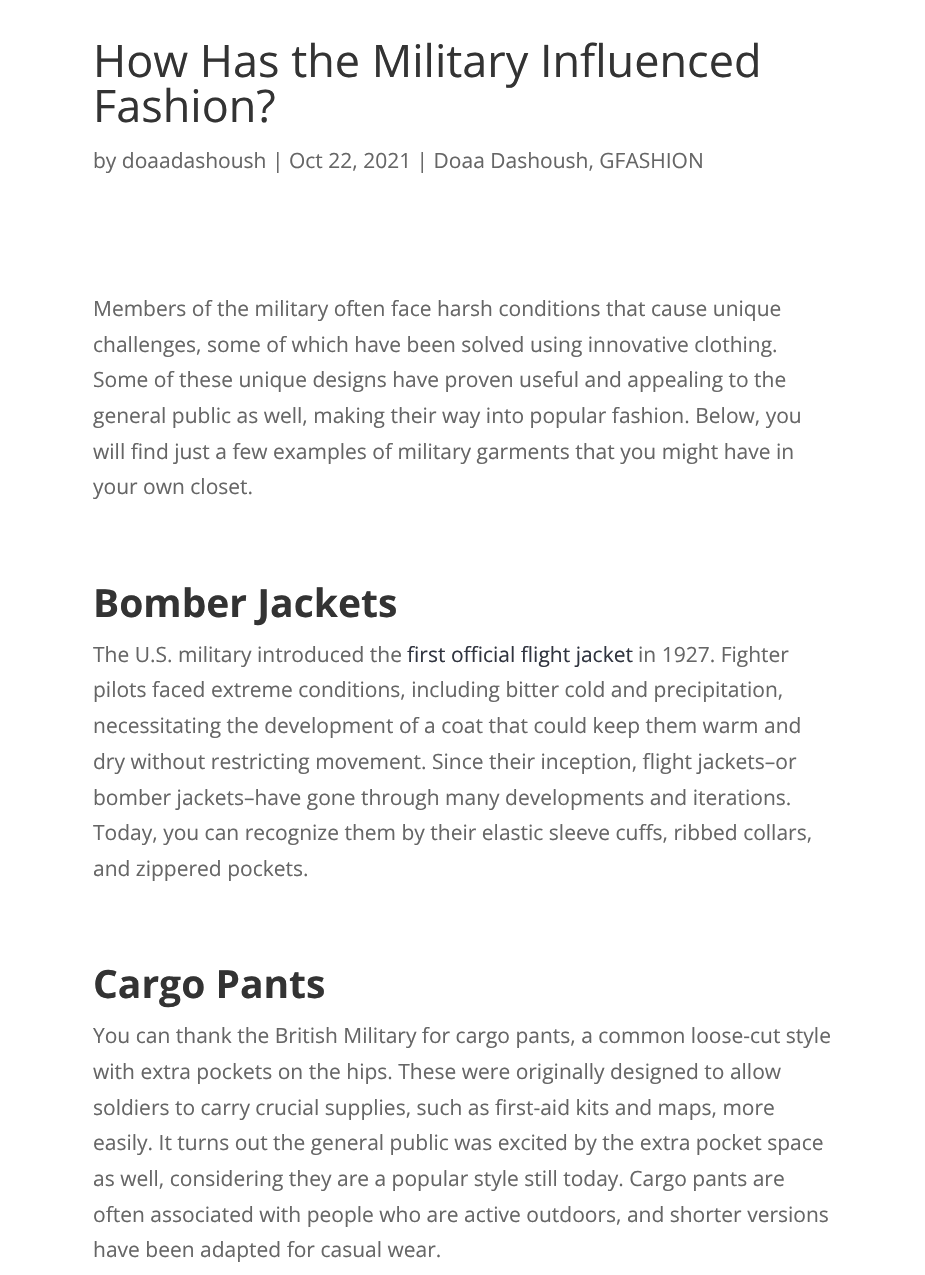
void draw(SkCanvas* c) {
SkPaint p;
p.setAntiAlias(true);
auto F=[&](const char* family, int weight, float size, bool italic = false){SkFontStyle style(weight, SkFontStyle::kNormal_Width,italic ? SkFontStyle::kItalic_Slant : SkFontStyle::kUpright_Slant);SkFont result(fontMgr->matchFamilyStyle(family, style), size);result.setSubpixel(true);return result;};
auto T=[&](const char* s, float x, float y, const SkFont& font){c->drawString(s, x, y, font, p);};
c->clear(0xffffffff);
auto f1 = F("Open Sans",400,45);
p.setColor(0xff333333);
T("How Has the Military Influenced",93,77,f1);
T("Fashion?",93,122,f1);
auto f2 = F("Open Sans",400,21);
p.setColor(0xff666666);
T("by doaadashoush | Oct 22, 2021 | Doaa Dashoush, GFASHION",93,168,f2);
T("Members of the military often face harsh conditions that cause unique",93,316,f2);
T("challenges, some of which have been solved using innovative clothing.",93,352,f2);
T("Some of these unique designs have proven useful and appealing to the",93,387,f2);
T("general public as well, making their way into popular fashion. Below, you",93,423,f2);
T("will find just a few examples of military garments that you might have in",93,459,f2);
T("your own closet.",93,494,f2);
auto f3 = F("Open Sans",700,39);
p.setColor(0xff333333);
T("Bomber Jackets",93,617,f3);
p.setColor(0xff666666);
T("The U.S. military introduced the",93,662,f2);
p.setColor(0xff30343f);
T("first official flight jacket",407,662,f2);
p.setColor(0xff666666);
T("in 1927. Fighter",638,662,f2);
T("pilots faced extreme conditions, including bitter cold and precipitation,",93,697,f2);
T("necessitating the development of a coat that could keep them warm and",93,733,f2);
T("dry without restricting movement. Since their inception, flight jackets–or",93,769,f2);
T("bomber jackets–have gone through many developments and iterations.",93,805,f2);
T("Today, you can recognize them by their elastic sleeve cuffs, ribbed collars,",93,840,f2);
T("and zippered pockets.",93,876,f2);
p.setColor(0xff333333);
T("Cargo Pants",93,998,f3);
p.setColor(0xff666666);
T("You can thank the British Military for cargo pants, a common loose-cut style",93,1043,f2);
T("with extra pockets on the hips. These were originally designed to allow",93,1079,f2);
T("soldiers to carry crucial supplies, such as first-aid kits and maps, more",93,1115,f2);
T("easily. It turns out the general public was excited by the extra pocket space",93,1150,f2);
T("as well, considering they are a popular style still today. Cargo pants are",93,1186,f2);
T("often associated with people who are active outdoors, and shorter versions",93,1222,f2);
T("have been adapted for casual wear.",93,1257,f2);
}
